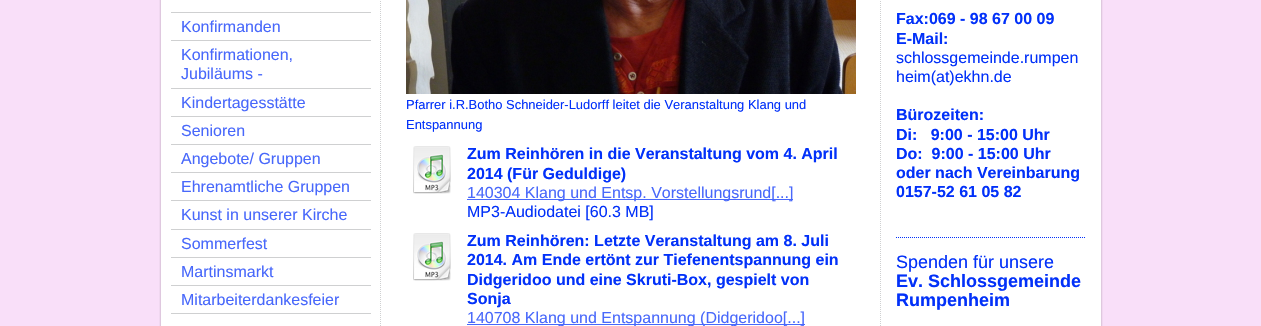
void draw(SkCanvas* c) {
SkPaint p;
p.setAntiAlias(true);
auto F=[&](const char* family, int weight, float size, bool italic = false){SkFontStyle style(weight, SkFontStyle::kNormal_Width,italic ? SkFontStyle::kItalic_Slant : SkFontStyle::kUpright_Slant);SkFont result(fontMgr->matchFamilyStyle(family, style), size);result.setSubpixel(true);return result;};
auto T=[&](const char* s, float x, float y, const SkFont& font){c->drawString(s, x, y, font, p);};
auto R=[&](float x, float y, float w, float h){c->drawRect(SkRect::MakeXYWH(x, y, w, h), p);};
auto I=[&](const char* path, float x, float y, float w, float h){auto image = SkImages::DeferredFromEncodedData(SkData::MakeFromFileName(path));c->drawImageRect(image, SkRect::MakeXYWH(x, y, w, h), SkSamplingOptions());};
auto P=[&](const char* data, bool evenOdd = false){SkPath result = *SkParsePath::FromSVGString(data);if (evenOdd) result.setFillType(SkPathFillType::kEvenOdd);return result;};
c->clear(0xfff9dff9);
I("1.png",159,0,944,326);
p.setColor(0xffcfd0d1);
R(171,12,200,1);
R(171,40,200,1);
auto f1 = F("Liberation Sans",400,16);
p.setColor(0xff4868fb);
T("Konfirmanden",181,32,f1);
p.setColor(0xffcfd0d1);
R(171,88,200,1);
p.setColor(0xff4868fb);
T("Konfirmationen,",181,60,f1);
T("Jubiläums -",181,79,f1);
p.setColor(0xffcfd0d1);
R(171,116,200,1);
p.setColor(0xff4868fb);
T("Kindertagesstätte",181,108,f1);
p.setColor(0xffcfd0d1);
R(171,144,200,1);
p.setColor(0xff4868fb);
T("Senioren",181,136,f1);
p.setColor(0xffcfd0d1);
R(171,172,200,1);
p.setColor(0xff4868fb);
T("Angebote/ Gruppen",181,164,f1);
p.setColor(0xffcfd0d1);
R(171,200,200,1);
p.setColor(0xff4868fb);
T("Ehrenamtliche Gruppen",181,192,f1);
p.setColor(0xffcfd0d1);
R(171,229,200,1);
p.setColor(0xff4868fb);
T("Kunst in unserer Kirche",181,220,f1);
p.setColor(0xffcfd0d1);
R(171,257,200,1);
p.setColor(0xff4868fb);
T("Sommerfest",181,249,f1);
p.setColor(0xffcfd0d1);
R(171,285,200,1);
p.setColor(0xff4868fb);
T("Martinsmarkt",181,277,f1);
p.setColor(0xffcfd0d1);
R(171,313,200,1);
p.setColor(0xff4868fb);
T("Mitarbeiterdankesfeier",181,305,f1);
I("2.png",406,0,450,94);
auto f2 = F("Liberation Sans",400,12.95);
p.setColor(0xff0231f9);
T("Pfarrer i.R.Botho Schneider-Ludorff leitet die Veranstaltung Klang und",406,109,f2);
T("Entspannung",406,129,f2);
I("3.png",413,146,38,48);
auto f3 = F("Liberation Sans",700,16);
T("Zum Reinhören in die Veranstaltung vom 4. April",467,159,f3);
T("2014 (Für Geduldige)",467,179,f3);
p.setColor(0xff4868fb);
R(467,199,326,1);
T("140304 Klang und Entsp. Vorstellungsrund[...]",467,198,f1);
p.setColor(0xff0231f9);
T("MP3-Audiodatei [60.3 MB]",467,217,f1);
I("3.png",413,233,38,48);
T("Zum Reinhören: Letzte Veranstaltung am 8. Juli",467,246,f3);
T("2014. Am Ende ertönt zur Tiefenentspannung ein",467,265,f3);
T("Didgeridoo und eine Skruti-Box, gespielt von",467,285,f3);
T("Sonja",467,304,f3);
p.setColor(0xff4868fb);
R(467,324,338,1);
T("140708 Klang und Entspannung (Didgeridoo[...]",467,323,f1);
p.setColor(0xff0231f9);
T("Fax:069 - 98 67 00 09",896,24,f3);
T("E-Mail:",896,44,f3);
T("schlossgemeinde.rumpen",896,63,f1);
T("heim(at)ekhn.de",896,82,f1);
T("Bürozeiten:",896,120,f3);
T("Di:   9:00 - 15:00 Uhr",896,140,f3);
T("Do:  9:00 - 15:00 Uhr",896,159,f3);
T("oder nach Vereinbarung",896,178,f3);
T("0157-52 61 05 82",896,197,f3);
p.setStroke(true);
p.setStrokeWidth(1);
p.setPathEffect(SkDashPathEffect::Make({{1,1}}, 0));
c->drawPath(P("M896 237.5h190"),p);
p.setPathEffect(nullptr);
auto f4 = F("Liberation Sans",400,18);
p.setStroke(false);
T("Spenden für unsere",896,268,f4);
auto f5 = F("Liberation Sans",700,18);
T("Ev. Schlossgemeinde",896,287,f5);
T("Rumpenheim",896,306,f5);
}
